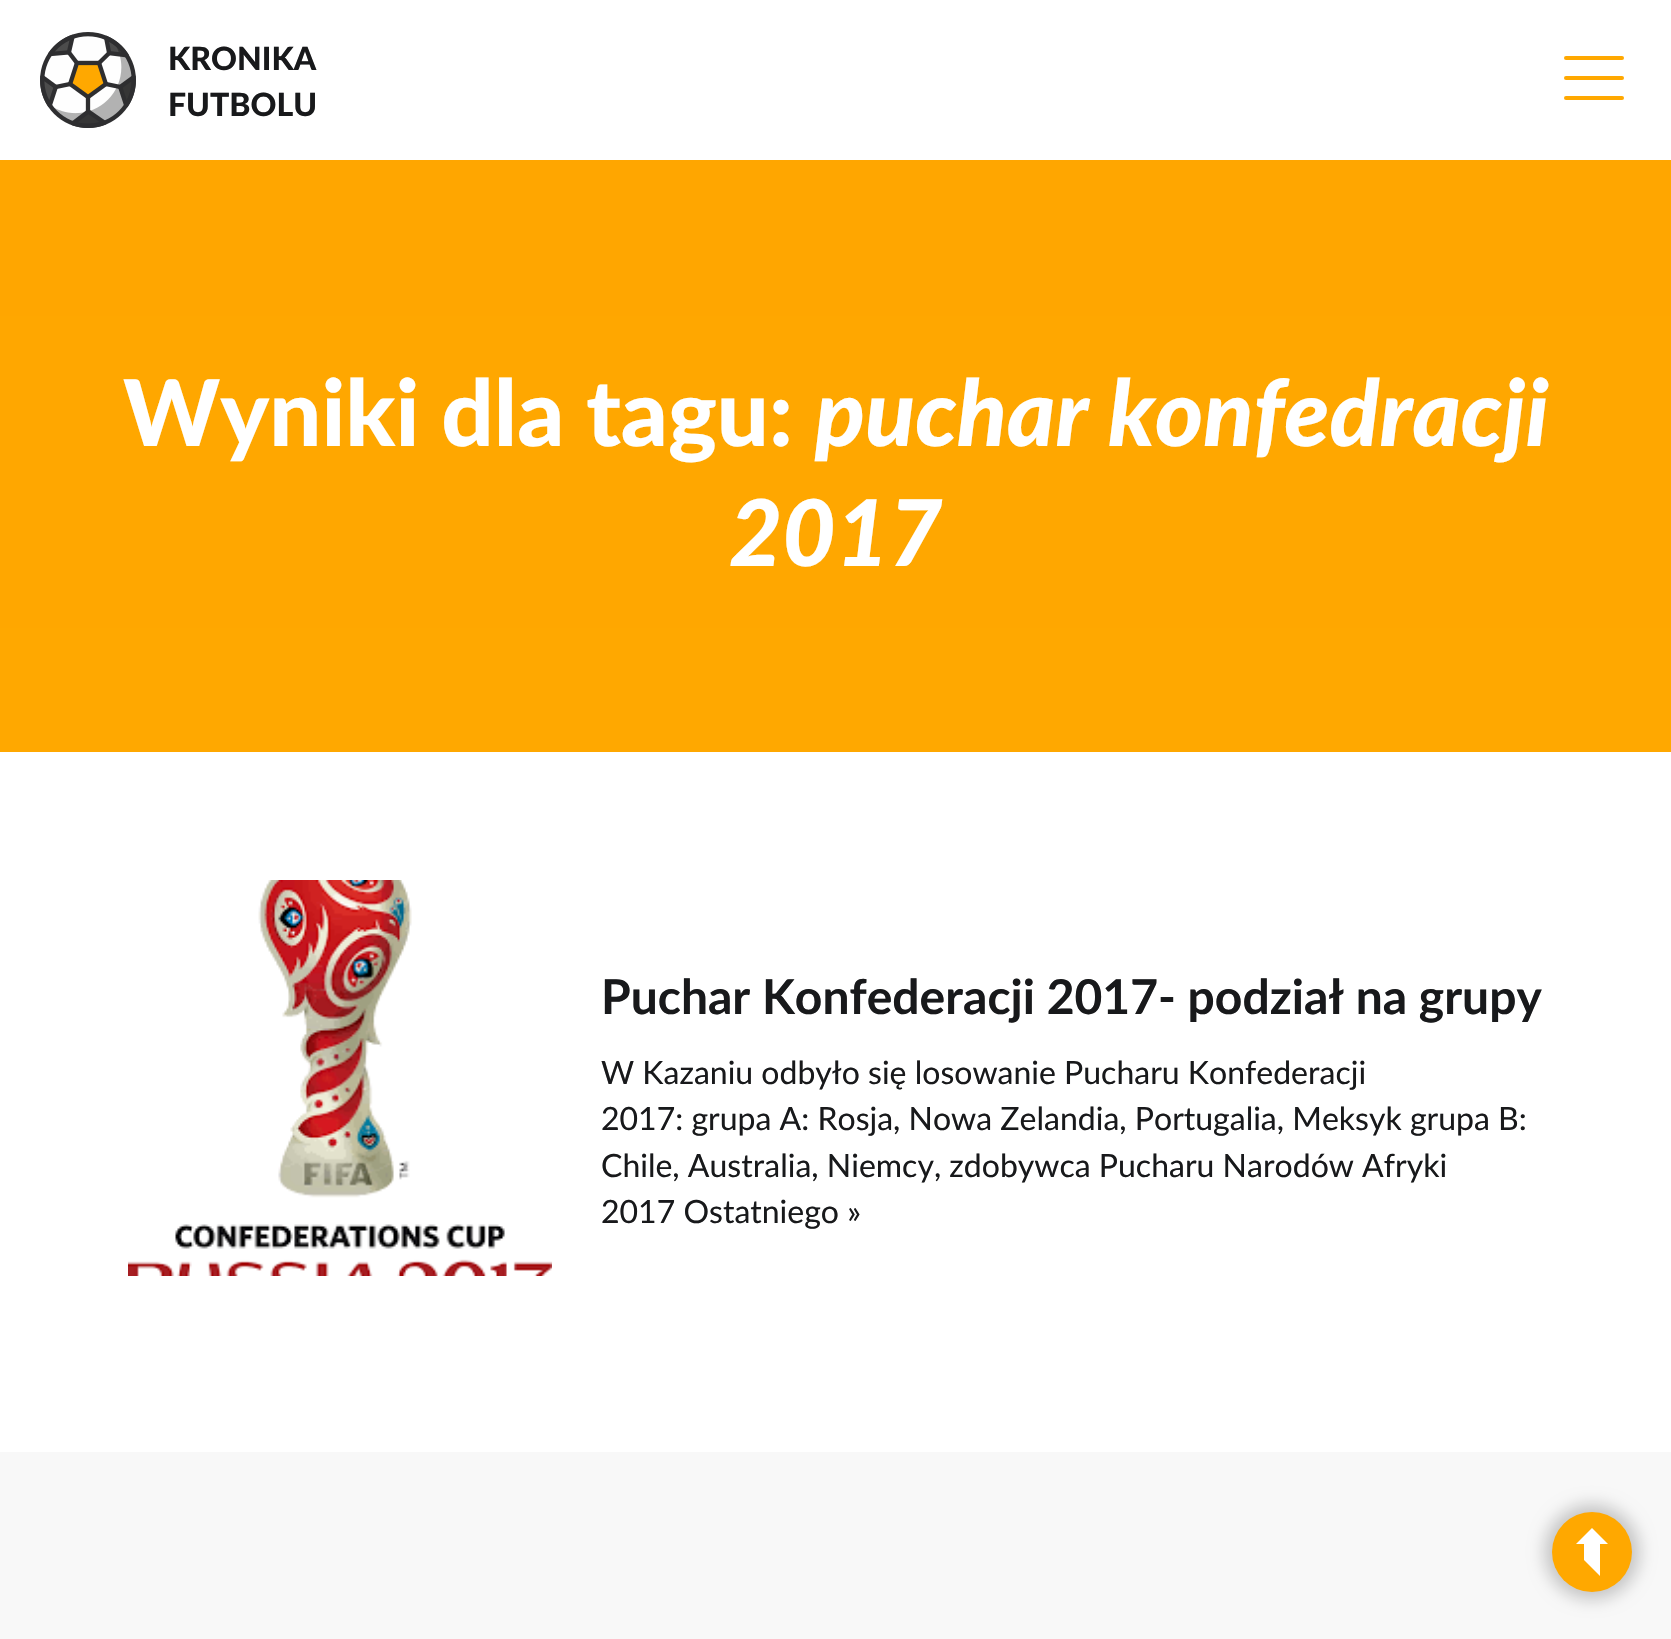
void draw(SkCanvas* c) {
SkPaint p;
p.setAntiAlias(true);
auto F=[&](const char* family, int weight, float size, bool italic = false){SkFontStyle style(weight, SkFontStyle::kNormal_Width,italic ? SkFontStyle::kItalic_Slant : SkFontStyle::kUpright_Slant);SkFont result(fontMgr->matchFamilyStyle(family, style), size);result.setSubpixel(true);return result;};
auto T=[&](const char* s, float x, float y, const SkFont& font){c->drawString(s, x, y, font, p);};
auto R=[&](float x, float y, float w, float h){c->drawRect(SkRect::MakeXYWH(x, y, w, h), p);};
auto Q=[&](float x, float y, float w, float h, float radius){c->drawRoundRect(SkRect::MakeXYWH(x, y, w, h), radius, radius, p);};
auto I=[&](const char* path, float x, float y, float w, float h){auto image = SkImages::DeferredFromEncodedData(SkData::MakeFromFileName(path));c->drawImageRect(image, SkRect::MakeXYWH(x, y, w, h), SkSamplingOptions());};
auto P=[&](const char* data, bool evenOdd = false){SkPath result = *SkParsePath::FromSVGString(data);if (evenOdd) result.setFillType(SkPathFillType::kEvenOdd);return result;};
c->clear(0xffffffff);
I("1.png",40,32,96,96);
auto f1 = F("Lato",900,32);
p.setColor(0xff18191b);
T("KRONIKA",168,70,f1);
T("FUTBOLU",168,116,f1);
p.setColor(0xffffa800);
Q(1564,56,60,4,2);
Q(1564,76,60,4,2);
Q(1564,96,60,4,2);
p.setColor(0xfff8f8f8);
R(0,1452,1671,187);
{
const SkColor colors[] = {0xffffa600,0xffffa800};
const float stops[] = {0,1};
const SkPoint ends[] = {{836,160}, {836,784}};
p.setShader(SkGradientShader::MakeLinear(ends, colors, stops, 2, SkTileMode::kClamp));
p.setAlpha(255);
}
R(0,160,1671,592);
auto f2 = F("Lato",900,92);
p.setShader(nullptr);
p.setColor(0xffffffff);
T("Wyniki dla tagu:",123,446,f2);
auto f3 = F("Lato",900,92,true);
T("puchar konfedracji",815,446,f3);
T("2017",729,566,f3);
I("2.png",128,880,424,396);
auto f4 = F("Lato",700,48);
p.setColor(0xff18191b);
T("Puchar Konfederacji 2017- podział na grupy",601,1014,f4);
auto f5 = F("Lato",400,32);
T("W Kazaniu odbyło się losowanie Pucharu Konfederacji",601,1084,f5);
T("2017: grupa A: Rosja, Nowa Zelandia, Portugalia, Meksyk grupa B:",601,1130,f5);
T("Chile, Australia, Niemcy, zdobywca Pucharu Narodów Afryki",601,1177,f5);
T("2017 Ostatniego »",601,1223,f5);
p.setColor(0x33000000);
p.setMaskFilter(SkMaskFilter::MakeBlur(kNormal_SkBlurStyle, 8));
c->drawRoundRect(SkRect::MakeXYWH(1544,1504,96,96),48,48,p);
p.setMaskFilter(nullptr);
p.setColor(0xffffa800);
c->drawCircle(1592,1552,40,p);
p.setColor(0xffffffff);
c->drawPath(P("M1584 1544h-8l16-16l16 16h-8v32l-16-16z"),p);
}
